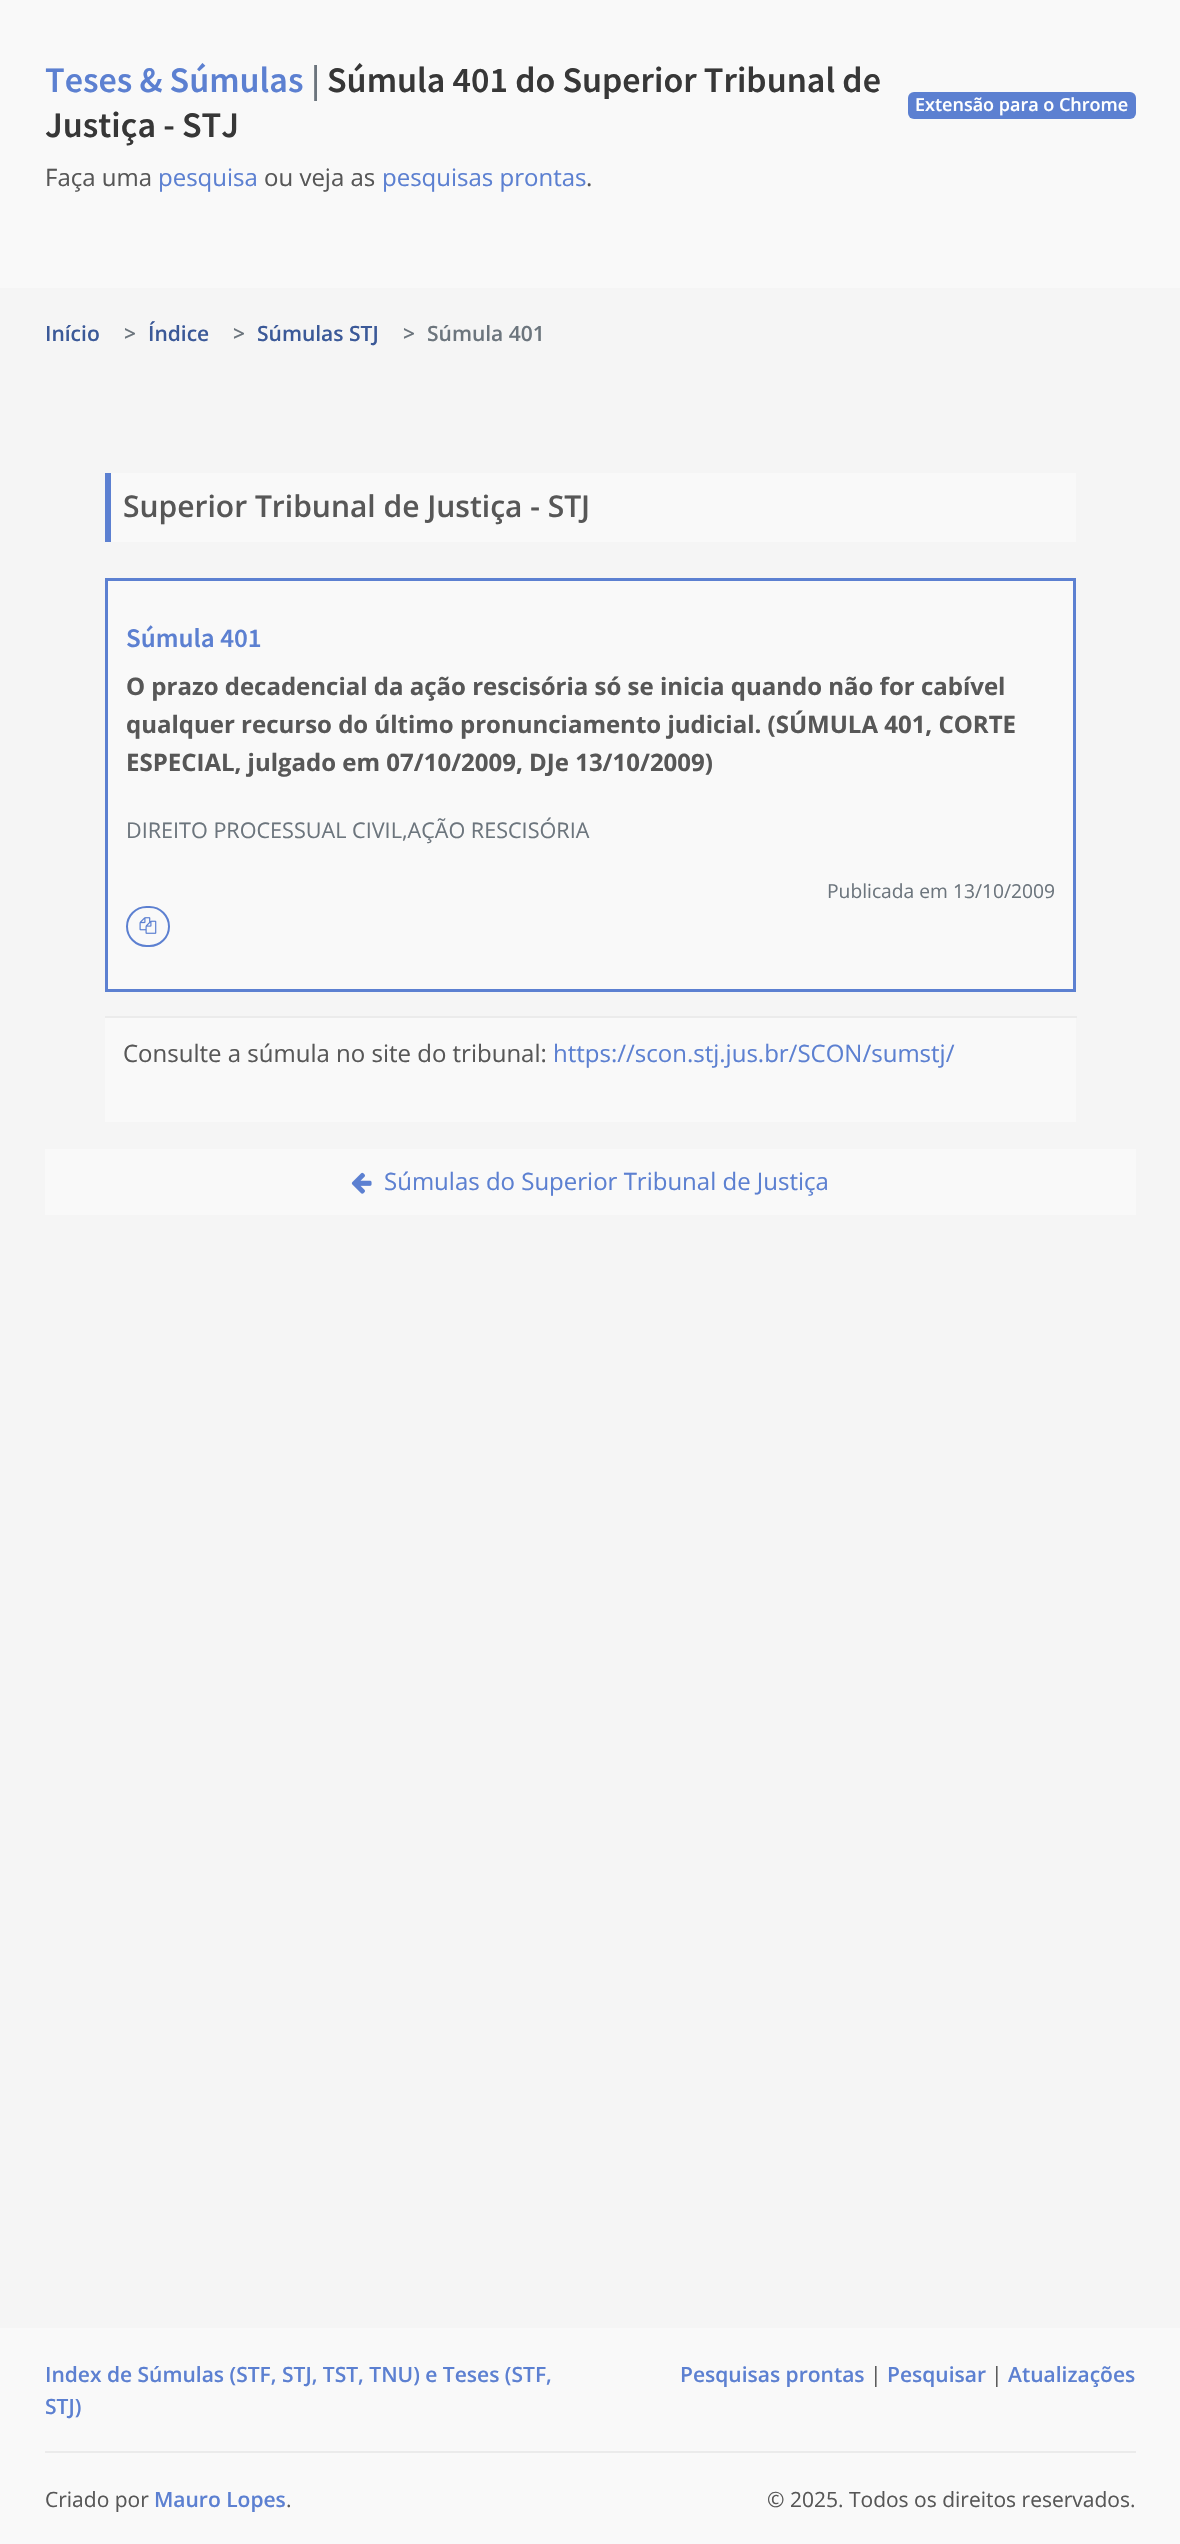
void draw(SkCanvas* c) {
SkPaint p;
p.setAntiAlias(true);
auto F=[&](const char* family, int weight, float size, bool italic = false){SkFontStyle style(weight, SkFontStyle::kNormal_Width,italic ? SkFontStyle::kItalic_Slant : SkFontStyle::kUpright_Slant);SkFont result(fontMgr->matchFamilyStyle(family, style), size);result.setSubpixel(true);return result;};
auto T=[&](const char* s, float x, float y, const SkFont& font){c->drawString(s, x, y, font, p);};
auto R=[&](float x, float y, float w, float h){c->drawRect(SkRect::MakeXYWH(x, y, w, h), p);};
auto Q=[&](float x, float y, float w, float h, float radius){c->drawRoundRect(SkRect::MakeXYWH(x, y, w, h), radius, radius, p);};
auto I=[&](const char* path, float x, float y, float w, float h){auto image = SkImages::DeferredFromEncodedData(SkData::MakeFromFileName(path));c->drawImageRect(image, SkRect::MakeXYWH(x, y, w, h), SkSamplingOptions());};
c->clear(0xfff5f5f5);
p.setColor(0xfff9f9f9);
R(0,0,1180,288);
auto f1 = F("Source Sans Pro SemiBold",600,36);
p.setColor(0xff5c80d1);
T("Teses & Súmulas",45,92,f1);
p.setColor(0xff6c757d);
T("|",311,92,f1);
p.setColor(0xff373737);
T("Súmula 401 do Superior Tribunal de",327,92,f1);
T("Justiça - STJ",45,137,f1);
p.setColor(0xff5c80d1);
Q(908,92,228,27,6);
auto f2 = F("Open Sans",600,18);
p.setColor(0xffffffff);
T("Extensão para o Chrome",915,111,f2);
auto f3 = F("Open Sans",400,24);
p.setColor(0xff575757);
T("Faça uma",45,186,f3);
p.setColor(0xff5c80d1);
T("pesquisa",158,186,f3);
p.setColor(0xff575757);
T("ou veja as",264,186,f3);
p.setColor(0xff5c80d1);
T("pesquisas prontas",382,186,f3);
p.setColor(0xff575757);
T(".",586,186,f3);
auto f4 = F("Open Sans",600,21);
p.setColor(0xff3b5998);
T("Início",45,341,f4);
p.setColor(0xff6c757d);
T(">",124,341,f4);
p.setColor(0xff3b5998);
T("Índice",148,341,f4);
p.setColor(0xff6c757d);
T(">",233,341,f4);
p.setColor(0xff3b5998);
T("Súmulas STJ",257,341,f4);
p.setColor(0xff6c757d);
T(">",403,341,f4);
T("Súmula 401",427,341,f4);
p.setColor(0xfff9f9f9);
R(111,473,965,69);
p.setColor(0xff5c80d1);
R(105,473,6,69);
auto f5 = F("Open Sans",600,30);
p.setColor(0xff575757);
T("Superior Tribunal de Justiça - STJ",123,517,f5);
p.setColor(0xff5c80d1);
R(105,578,971,3);
R(1073,578,3,414);
R(105,989,971,3);
R(105,578,3,414);
p.setColor(0xfff9f9f9);
R(108,581,965,408);
auto f6 = F("Source Sans Pro SemiBold",600,27);
p.setColor(0xff5c80d1);
T("Súmula 401",126,647,f6);
auto f7 = F("Open Sans",700,24);
p.setColor(0xff575757);
T("O prazo decadencial da ação rescisória só se inicia quando não for cabível",126,695,f7);
T("qualquer recurso do último pronunciamento judicial. (SÚMULA 401, CORTE",126,733,f7);
T("ESPECIAL, julgado em 07/10/2009, DJe 13/10/2009)",126,771,f7);
auto f8 = F("Open Sans",400,21.6);
p.setColor(0xff6c757d);
T("DIREITO PROCESSUAL CIVIL,AÇÃO RESCISÓRIA",126,838,f8);
auto f9 = F("Open Sans",400,19.25);
T("Publicada em 13/10/2009",827,898,f9);
p.setStroke(true);
p.setStrokeWidth(2);
p.setColor(0xff5c80d1);
c->drawRoundRect(SkRect::MakeXYWH(127,907,42,39),19.5,19.5,p);
I("1.png",139,917,18,17);
p.setStroke(false);
p.setColor(0xfff9f9f9);
R(105,1018,971,104);
p.setColor(0xffebebeb);
R(105,1016,972,2);
p.setColor(0xff575757);
T("Consulte a súmula no site do tribunal:",123,1062,f3);
p.setColor(0xff5c80d1);
T("https://scon.stj.jus.br/SCON/sumstj/",553,1062,f3);
p.setColor(0xfff9f9f9);
R(45,1149,1091,66);
I("2.png",351,1172,21,22);
p.setColor(0xff5c80d1);
T("Súmulas do Superior Tribunal de Justiça",384,1190,f3);
p.setColor(0xfff9f9f9);
R(0,2328,1180,216);
p.setColor(0xff5c80d1);
T("Index de Súmulas (STF, STJ, TST, TNU) e Teses (STF,",45,2382,f4);
T("STJ)",45,2414,f4);
T("Pesquisas prontas",680,2382,f4);
auto f10 = F("Open Sans",400,21);
p.setColor(0xff575757);
T("|",870,2382,f10);
p.setColor(0xff5c80d1);
T("Pesquisar",887,2382,f4);
p.setColor(0xff575757);
T("|",991,2382,f10);
p.setColor(0xff5c80d1);
T("Atualizações",1008,2382,f4);
p.setColor(0xffebebeb);
R(45,2451,1091,2);
p.setColor(0xff575757);
T("Criado por",45,2507,f10);
p.setColor(0xff5c80d1);
T("Mauro Lopes",154,2507,f4);
p.setColor(0xff575757);
T(".",286,2507,f10);
T("© 2025. Todos os direitos reservados.",767,2507,f10);
}
